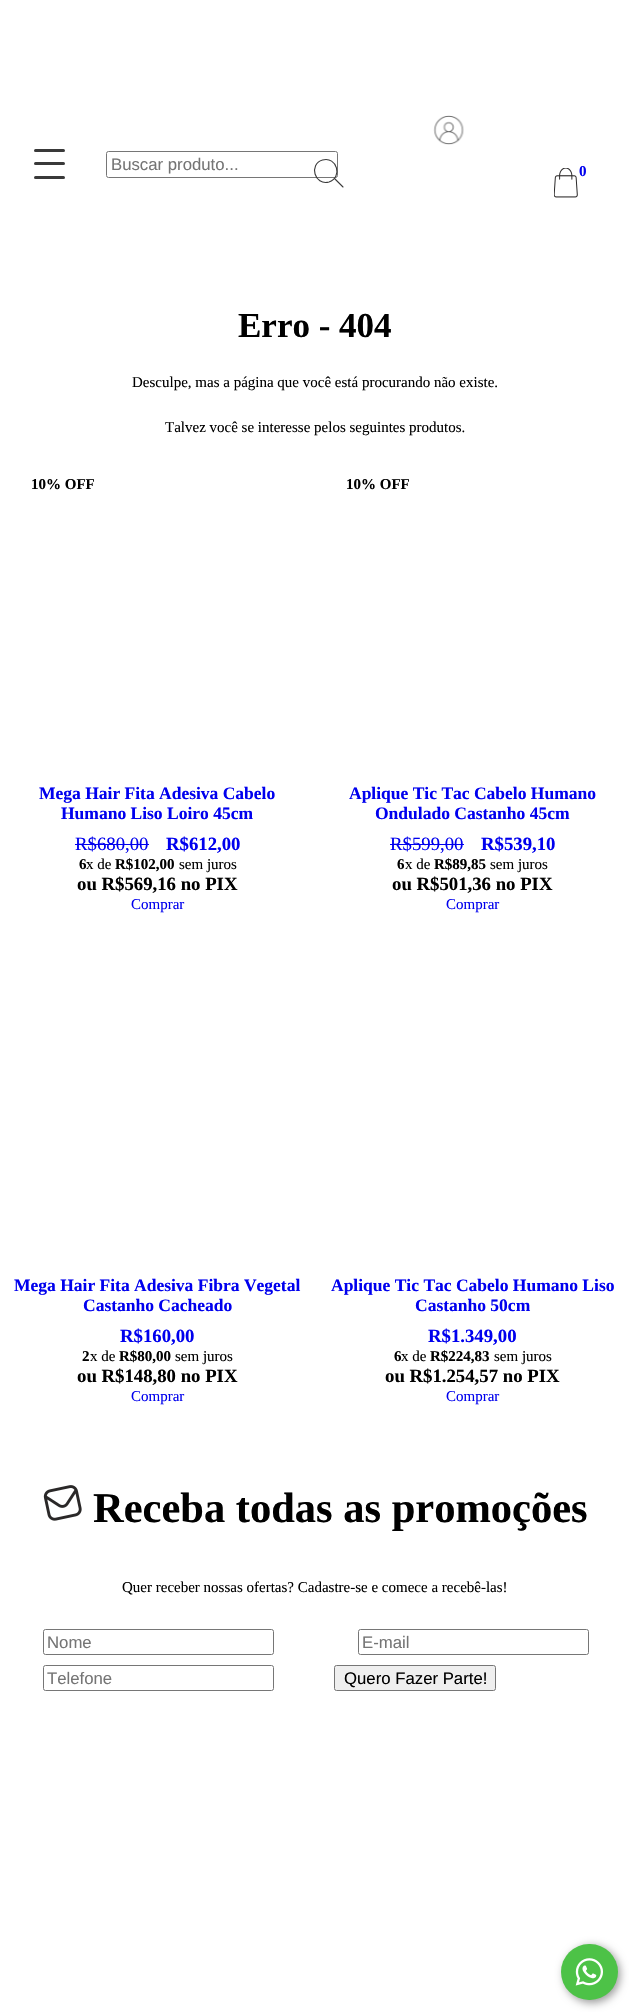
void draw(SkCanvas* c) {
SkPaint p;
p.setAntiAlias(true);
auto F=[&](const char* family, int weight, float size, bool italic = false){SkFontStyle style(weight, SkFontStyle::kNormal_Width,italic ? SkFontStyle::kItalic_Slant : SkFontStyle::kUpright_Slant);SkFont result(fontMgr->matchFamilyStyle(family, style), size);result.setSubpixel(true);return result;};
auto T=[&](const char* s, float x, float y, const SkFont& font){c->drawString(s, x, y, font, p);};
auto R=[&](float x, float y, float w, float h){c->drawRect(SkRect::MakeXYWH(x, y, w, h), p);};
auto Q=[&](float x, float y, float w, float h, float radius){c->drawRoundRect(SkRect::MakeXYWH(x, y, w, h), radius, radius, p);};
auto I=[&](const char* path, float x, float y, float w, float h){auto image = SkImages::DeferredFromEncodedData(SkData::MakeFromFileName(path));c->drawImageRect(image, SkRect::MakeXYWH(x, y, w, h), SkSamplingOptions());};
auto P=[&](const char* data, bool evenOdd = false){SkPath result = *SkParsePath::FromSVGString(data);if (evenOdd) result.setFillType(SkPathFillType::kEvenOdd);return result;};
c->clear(0xffffffff);
p.setColor(0xff393939);
Q(34,149,31,3,1.5);
Q(34,162,31,3,1.5);
Q(34,176,31,3,1.5);
p.setStroke(true);
p.setStrokeWidth(1);
p.setColor(0xff767676);
c->drawRoundRect(SkRect::MakeXYWH(106.5,151.5,231,26),2,2,p);
auto f1 = F("Liberation Sans",400,16.75);
p.setStroke(false);
p.setColor(0xff757575);
T("Buscar produto...",111,170,f1);
p.setStroke(true);
p.setStrokeWidth(1.1);
p.setColor(0xff393939);
c->drawPath(P("M322.5 160c14.5-4 20.5 17.5 6.5 22c-14.5 4-20.5-18-6.5-22z"),p);
p.setStrokeCap(SkPaint::kRound_Cap);
c->drawPath(P("M334.5 178.5l8.5 8.5"),p);
I("1.png",433,115,31,30);
I("2.png",554,168,24,30);
auto f2 = F("Liberation Serif",700,15);
p.setStroke(false);
p.setColor(0xff0000ee);
T("0",579,176,f2);
auto f3 = F("Liberation Serif",700,35);
p.setColor(0xff000000);
T("Erro - 404",238,337,f3);
auto f4 = F("Liberation Serif",400,15);
T("Desculpe, mas a página que você está procurando não existe.",132,387,f4);
T("Talvez você se interesse pelos seguintes produtos.",165,432,f4);
T("10% OFF",31,489,f2);
auto f5 = F("Liberation Serif",700,17.5);
p.setColor(0xff0000ee);
T("Mega Hair Fita Adesiva Cabelo",39,799,f5);
T("Humano Liso Loiro 45cm",61,819,f5);
auto f6 = F("Liberation Serif",400,18.75);
T("R$680,00",75,850,f6);
R(75,844,74,1);
auto f7 = F("Liberation Serif",700,18.75);
T("R$612,00",166,850,f7);
p.setColor(0xff000000);
T("6",79,869,f2);
T("x de",86,869,f4);
T("R$102,00",115,869,f2);
T("sem juros",179,869,f4);
T("ou R$569,16 no PIX",77,890,f7);
p.setColor(0xff0000ee);
T("Comprar",131,909,f4);
p.setColor(0xff000000);
T("10% OFF",346,489,f2);
p.setColor(0xff0000ee);
T("Aplique Tic Tac Cabelo Humano",349,799,f5);
T("Ondulado Castanho 45cm",375,819,f5);
T("R$599,00",390,850,f6);
R(390,844,74,1);
T("R$539,10",481,850,f7);
p.setColor(0xff000000);
T("6",397,869,f2);
T("x de",405,869,f4);
T("R$89,85",434,869,f2);
T("sem juros",490,869,f4);
T("ou R$501,36 no PIX",392,890,f7);
p.setColor(0xff0000ee);
T("Comprar",446,909,f4);
T("Mega Hair Fita Adesiva Fibra Vegetal",14,1291,f5);
T("Castanho Cacheado",83,1311,f5);
T("R$160,00",120,1342,f7);
p.setColor(0xff000000);
T("2",82,1361,f2);
T("x de",90,1361,f4);
T("R$80,00",119,1361,f2);
T("sem juros",175,1361,f4);
T("ou R$148,80 no PIX",77,1382,f7);
p.setColor(0xff0000ee);
T("Comprar",131,1401,f4);
T("Aplique Tic Tac Cabelo Humano Liso",331,1291,f5);
T("Castanho 50cm",415,1311,f5);
T("R$1.349,00",428,1342,f7);
p.setColor(0xff000000);
T("6",394,1361,f2);
T("x de",401,1361,f4);
T("R$224,83",430,1361,f2);
T("sem juros",494,1361,f4);
T("ou R$1.254,57 no PIX",385,1382,f7);
p.setColor(0xff0000ee);
T("Comprar",446,1401,f4);
I("3.png",43,1485,39,36);
auto f8 = F("Liberation Serif",700,42.5);
p.setColor(0xff000000);
T("Receba todas as promoções",93,1522,f8);
T("Quer receber nossas ofertas? Cadastre-se e comece a recebê-las!",122,1592,f4);
p.setStroke(true);
p.setStrokeWidth(1);
p.setStrokeCap(SkPaint::kButt_Cap);
p.setColor(0xff767676);
c->drawRoundRect(SkRect::MakeXYWH(43.5,1629.5,230,25),2,2,p);
p.setStroke(false);
p.setColor(0xff757575);
T("Nome",47,1648,f1);
p.setStroke(true);
p.setColor(0xff767676);
c->drawRoundRect(SkRect::MakeXYWH(358.5,1629.5,230,25),2,2,p);
p.setStroke(false);
p.setColor(0xff757575);
T("E-mail",362,1648,f1);
p.setStroke(true);
p.setColor(0xff767676);
c->drawRoundRect(SkRect::MakeXYWH(43.5,1665.5,230,25),2,2,p);
p.setStroke(false);
p.setColor(0xff757575);
T("Telefone",47,1684,f1);
p.setColor(0xffefefef);
c->drawRoundRect(SkRect::MakeXYWH(334.5,1665.5,161,25),2,2,p);
p.setStroke(true);
p.setColor(0xff767676);
c->drawRoundRect(SkRect::MakeXYWH(334.5,1665.5,161,25),2,2,p);
p.setStroke(false);
p.setColor(0xff000000);
T("Quero Fazer Parte!",344,1684,f1);
p.setColor(0x66000000);
p.setMaskFilter(SkMaskFilter::MakeBlur(kNormal_SkBlurStyle, 4));
c->drawRoundRect(SkRect::MakeXYWH(564,1946,56,57),28,28,p);
p.setMaskFilter(nullptr);
p.setColor(0xff4dc247);
Q(561,1944,57,56,28);
I("4.png",575,1958,28,28);
}
